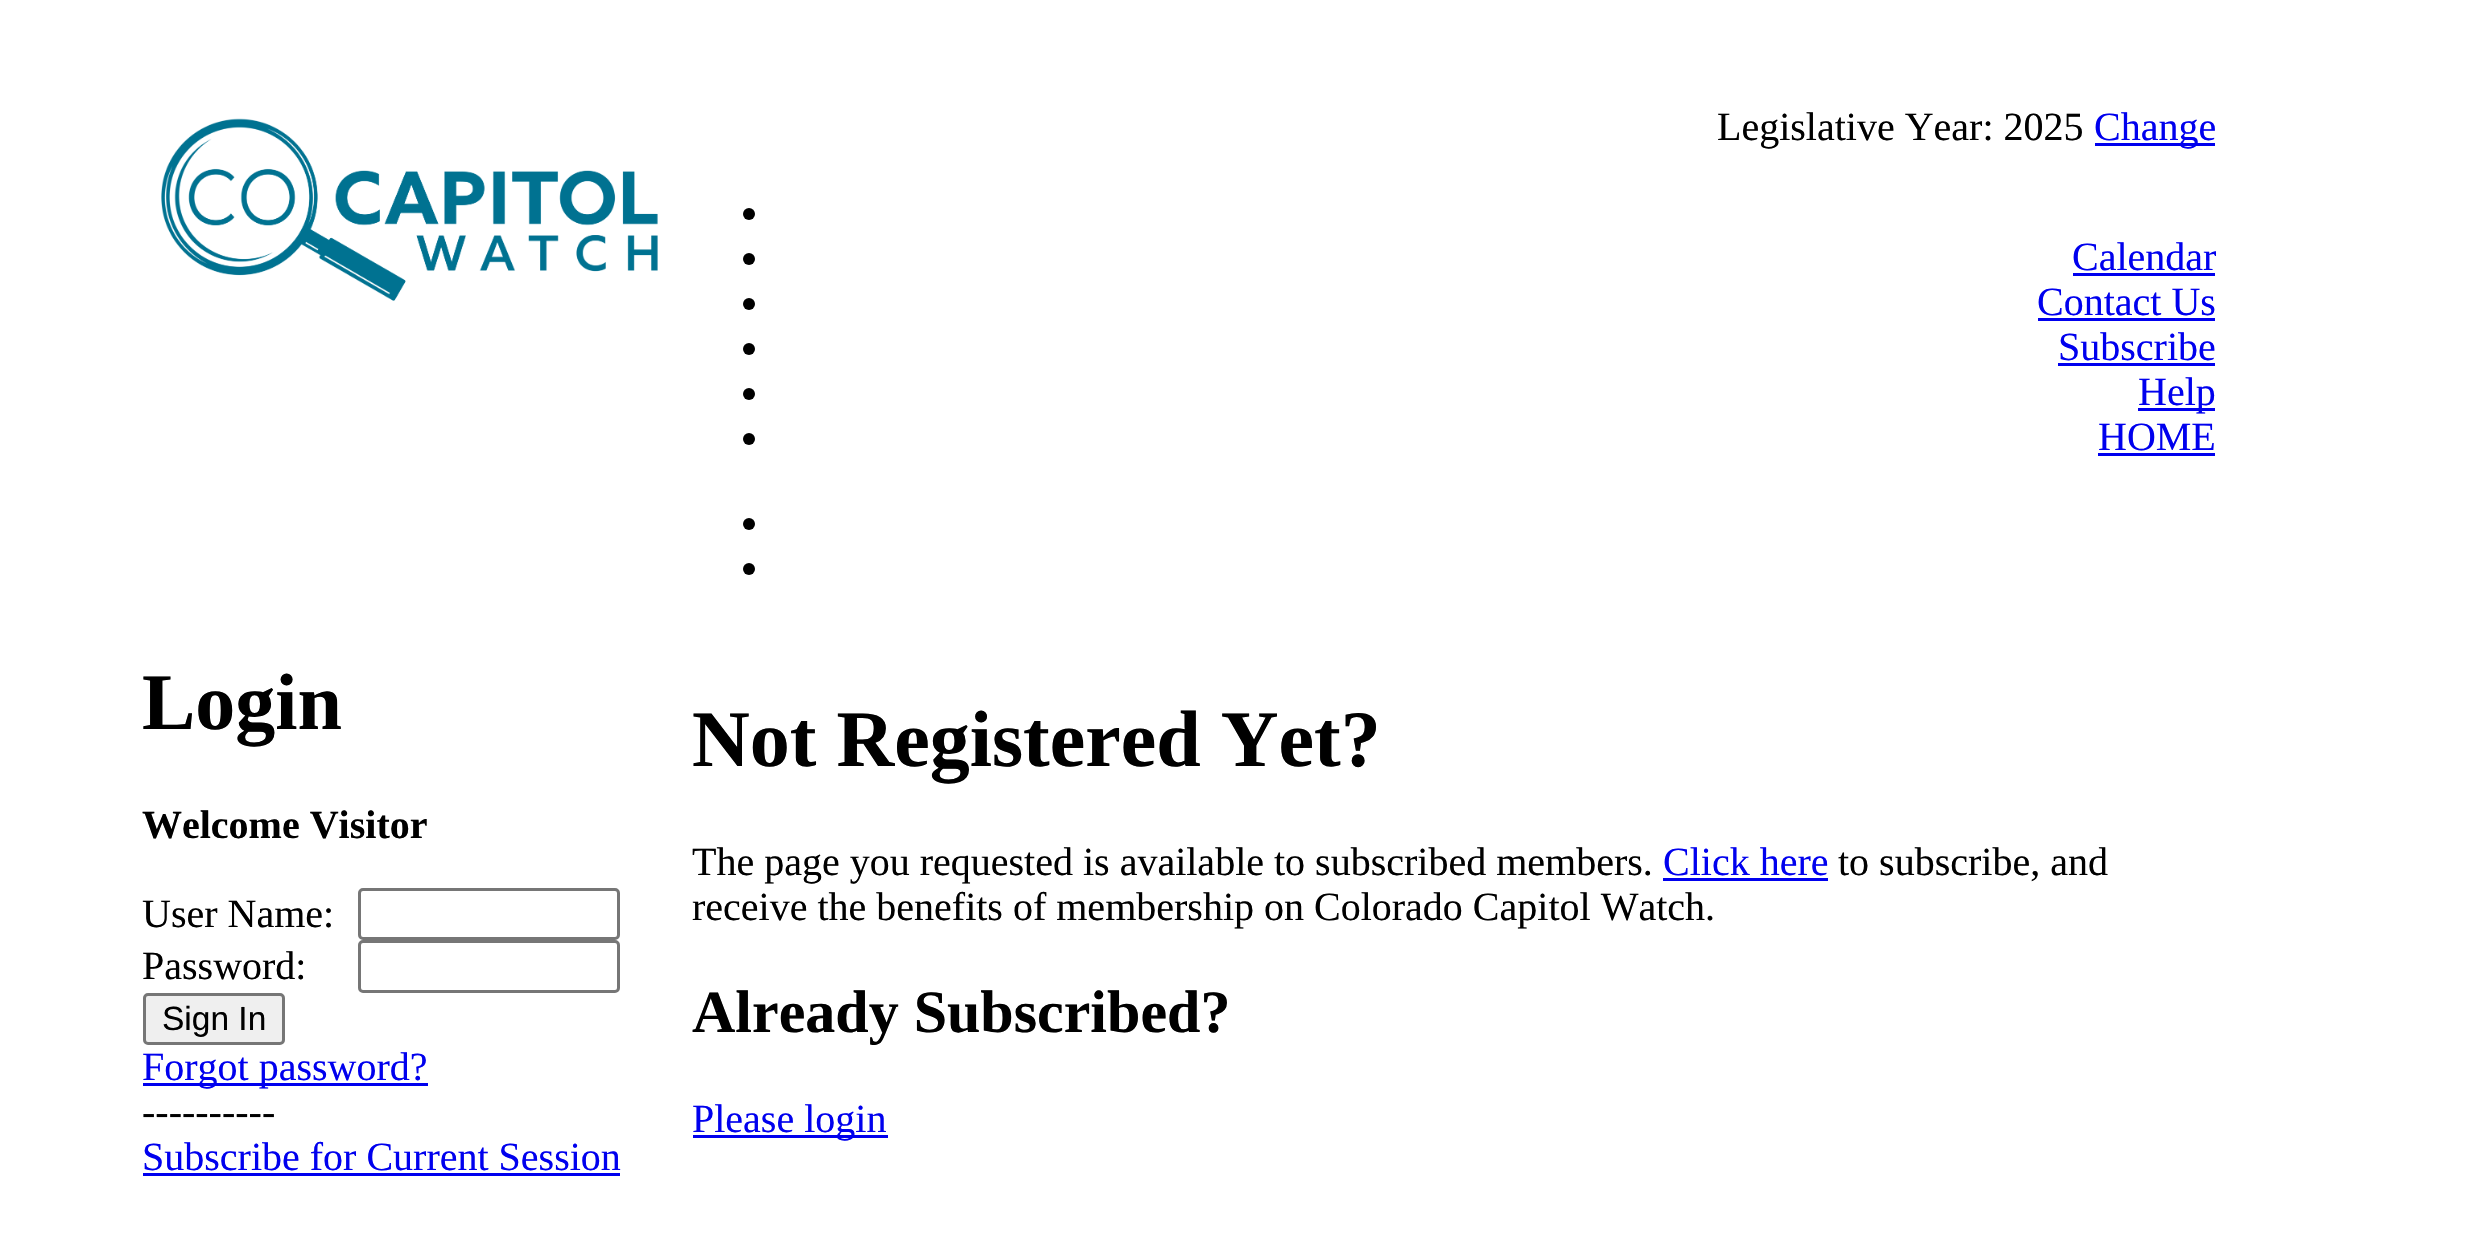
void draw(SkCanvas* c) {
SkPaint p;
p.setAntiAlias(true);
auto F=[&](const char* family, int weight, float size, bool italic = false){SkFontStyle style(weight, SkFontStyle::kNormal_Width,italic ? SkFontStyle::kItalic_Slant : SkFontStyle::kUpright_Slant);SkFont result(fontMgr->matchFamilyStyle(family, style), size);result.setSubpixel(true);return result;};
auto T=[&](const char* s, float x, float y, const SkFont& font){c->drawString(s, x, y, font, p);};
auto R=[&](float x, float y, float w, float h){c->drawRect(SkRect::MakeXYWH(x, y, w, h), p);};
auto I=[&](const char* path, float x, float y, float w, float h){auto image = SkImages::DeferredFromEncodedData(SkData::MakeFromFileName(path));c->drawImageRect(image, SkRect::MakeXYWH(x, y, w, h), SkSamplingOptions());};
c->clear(0xffffffff);
I("1.png",161,118,497,183);
auto f1 = F("Liberation Serif",700,80);
p.setColor(0xff000000);
T("Login",142,729,f1);
auto f2 = F("Liberation Serif",700,40);
T("Welcome Visitor",142,838,f2);
auto f3 = F("Liberation Serif",400,40);
T("User Name:",142,927,f3);
p.setStroke(true);
p.setStrokeWidth(3);
p.setColor(0xff767676);
c->drawRoundRect(SkRect::MakeXYWH(359.5,889.5,259,49),3.5,3.5,p);
p.setStroke(false);
p.setColor(0xff000000);
T("Password:",142,979,f3);
p.setStroke(true);
p.setColor(0xff767676);
c->drawRoundRect(SkRect::MakeXYWH(359.5,941.5,259,50),3.5,3.5,p);
p.setStroke(false);
p.setColor(0xffefefef);
c->drawRoundRect(SkRect::MakeXYWH(144.5,994.5,139,49),3.5,3.5,p);
p.setStroke(true);
p.setColor(0xff767676);
c->drawRoundRect(SkRect::MakeXYWH(144.5,994.5,139,49),3.5,3.5,p);
auto f4 = F("Liberation Sans",400,33.5);
p.setStroke(false);
p.setColor(0xff000000);
T("Sign In",162,1030,f4);
p.setColor(0xff0000ee);
R(143,1083,285,3);
T("Forgot password?",142,1080,f3);
p.setColor(0xff000000);
T("----------",142,1125,f3);
p.setColor(0xff0000ee);
T("Subscribe for Current Session",142,1170,f3);
R(143,1173,477,3);
p.setColor(0xff000000);
T("Legislative Year: 2025",1717,140,f3);
p.setColor(0xff0000ee);
R(2095,143,120,3);
T("Change",2094,140,f3);
p.setColor(0xff000000);
c->drawCircle(749,214,6,p);
c->drawCircle(749,259,6,p);
p.setColor(0xff0000ee);
T("Calendar",2072,270,f3);
R(2073,273,142,3);
p.setColor(0xff000000);
c->drawCircle(749,304,6,p);
p.setColor(0xff0000ee);
T("Contact Us",2037,315,f3);
R(2038,318,177,3);
p.setColor(0xff000000);
c->drawCircle(749,349,6,p);
p.setColor(0xff0000ee);
T("Subscribe",2058,360,f3);
R(2058,363,157,3);
p.setColor(0xff000000);
c->drawCircle(749,394,6,p);
p.setColor(0xff0000ee);
R(2138,408,77,3);
T("Help",2138,405,f3);
p.setColor(0xff000000);
c->drawCircle(749,439,6,p);
p.setColor(0xff0000ee);
T("HOME",2098,450,f3);
R(2098,453,117,3);
p.setColor(0xff000000);
c->drawCircle(749,524,6,p);
c->drawCircle(749,569,6,p);
T("Not Registered Yet?",692,766,f1);
T("The page you requested is available to subscribed members.",692,875,f3);
p.setColor(0xff0000ee);
T("Click here",1663,875,f3);
R(1663,878,165,3);
p.setColor(0xff000000);
T("to subscribe, and",1838,875,f3);
T("receive the benefits of membership on Colorado Capitol Watch.",692,920,f3);
auto f5 = F("Liberation Serif",700,60);
T("Already Subscribed?",692,1032,f5);
p.setColor(0xff0000ee);
R(693,1135,195,3);
T("Please login",692,1132,f3);
}
